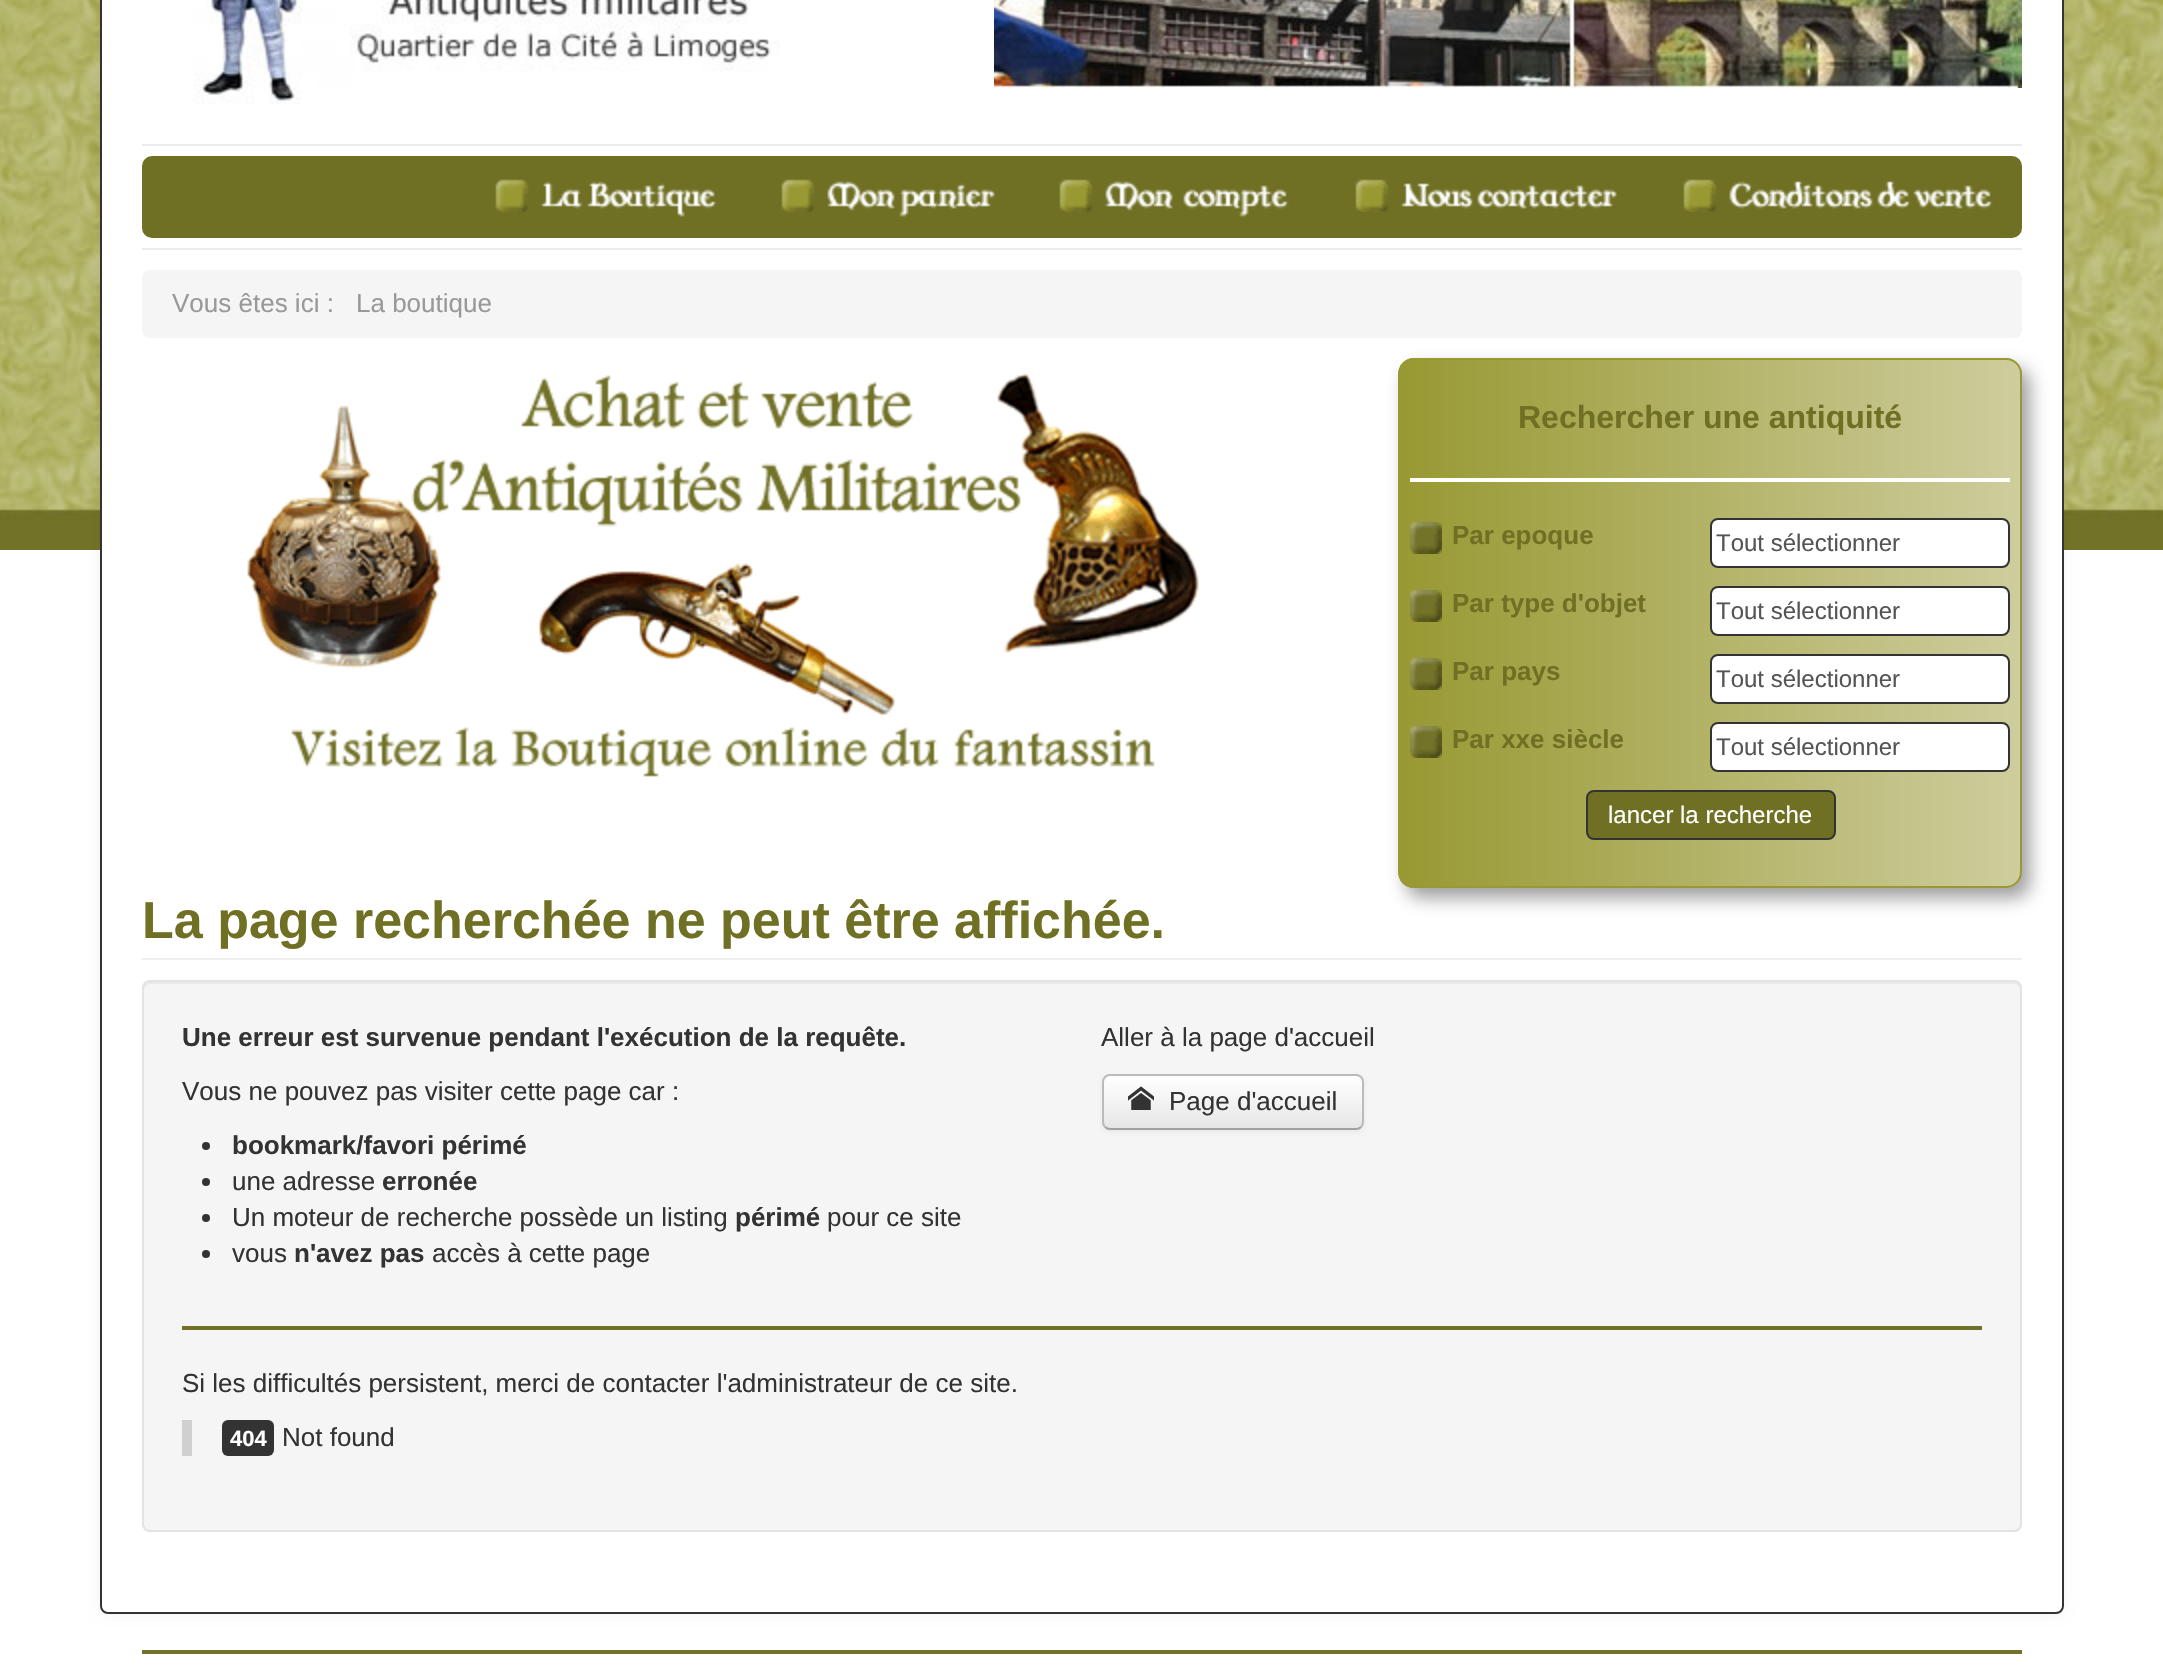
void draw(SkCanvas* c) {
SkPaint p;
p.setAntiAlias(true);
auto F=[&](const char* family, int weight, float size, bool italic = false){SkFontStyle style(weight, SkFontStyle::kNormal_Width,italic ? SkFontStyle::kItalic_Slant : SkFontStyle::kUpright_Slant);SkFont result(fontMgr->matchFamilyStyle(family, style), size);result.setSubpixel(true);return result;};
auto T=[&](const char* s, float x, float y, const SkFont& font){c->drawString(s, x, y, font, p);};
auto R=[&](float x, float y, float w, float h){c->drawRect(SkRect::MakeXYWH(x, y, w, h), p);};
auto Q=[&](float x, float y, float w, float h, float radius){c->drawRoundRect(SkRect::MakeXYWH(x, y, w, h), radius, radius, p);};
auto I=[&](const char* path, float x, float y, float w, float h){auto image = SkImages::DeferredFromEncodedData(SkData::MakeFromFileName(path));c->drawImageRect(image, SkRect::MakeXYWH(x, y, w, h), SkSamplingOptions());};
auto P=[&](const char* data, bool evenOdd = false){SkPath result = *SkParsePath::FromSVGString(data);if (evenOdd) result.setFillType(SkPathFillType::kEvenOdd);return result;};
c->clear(0xffffffff);
I("1.png",0,0,2163,550);
p.setColor(0x0d000000);
p.setMaskFilter(SkMaskFilter::MakeBlur(kNormal_SkBlurStyle, 6));
c->drawRoundRect(SkRect::MakeXYWH(100,-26,1964,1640),8,8,p);
p.setMaskFilter(nullptr);
p.setColor(0xffffffff);
c->drawRoundRect(SkRect::MakeXYWH(101,-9,1962,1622),7,7,p);
p.setStroke(true);
p.setStrokeWidth(2);
p.setColor(0xff333333);
c->drawRoundRect(SkRect::MakeXYWH(101,-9,1962,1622),7,7,p);
I("2.png",194,0,586,104);
I("3.png",994,0,1028,88);
p.setStroke(false);
p.setColor(0xffececec);
R(142,144,1880,2);
R(142,248,1880,2);
p.setColor(0xff707025);
Q(142,156,1880,82,10);
I("4.png",495,179,222,38);
I("5.png",781,179,214,38);
I("6.png",1059,179,230,38);
I("7.png",1355,179,262,33);
I("8.png",1683,179,310,33);
p.setColor(0xfff5f5f5);
Q(142,270,1880,68,8);
auto f1 = F("Liberation Sans",400,26);
p.setColor(0xff999999);
T("Vous êtes ici :",172,312,f1);
T("La boutique",356,312,f1);
I("9.png",247,373,952,404);
p.setColor(0xb5777777);
p.setMaskFilter(SkMaskFilter::MakeBlur(kNormal_SkBlurStyle, 9));
c->drawRoundRect(SkRect::MakeXYWH(1406,368,624,530),16,16,p);
p.setMaskFilter(nullptr);
c->save();
c->clipPath(P("M1414 358h592c9 0 16 7 16 16v498c0 9-7 16-16 16h-592c-9 0-16-7-16-16v-498c0-9 7-16 16-16z"),true);
{
const SkColor colors[] = {0xff989933,0xffcecd9d};
const float stops[] = {0,1};
const SkPoint ends[] = {{1400,623}, {2020,623}};
p.setShader(SkGradientShader::MakeLinear(ends, colors, stops, 2, SkTileMode::kClamp));
p.setAlpha(255);
}
R(1400,358,620,530);
c->restore();
p.setStroke(true);
p.setShader(nullptr);
p.setColor(0xff989933);
c->drawRoundRect(SkRect::MakeXYWH(1399,359,622,528),15,15,p);
auto f2 = F("Liberation Sans",700,32);
p.setStroke(false);
p.setColor(0xff707025);
T("Rechercher une antiquité",1518,428,f2);
p.setColor(0xffffffff);
R(1410,478,600,4);
I("10.png",1410,522,32,32);
auto f3 = F("Liberation Sans",700,26);
p.setColor(0xff707025);
T("Par epoque",1452,544,f3);
p.setColor(0xffffffff);
c->drawRoundRect(SkRect::MakeXYWH(1711,519,298,48),7,7,p);
p.setStroke(true);
p.setColor(0xff333333);
c->drawRoundRect(SkRect::MakeXYWH(1711,519,298,48),7,7,p);
auto f4 = F("Liberation Sans",400,24);
p.setStroke(false);
p.setColor(0xff555555);
T("Tout sélectionner",1716,551,f4);
I("10.png",1410,590,32,32);
p.setColor(0xff707025);
T("Par type d'objet",1452,612,f3);
p.setColor(0xffffffff);
c->drawRoundRect(SkRect::MakeXYWH(1711,587,298,48),7,7,p);
p.setStroke(true);
p.setColor(0xff333333);
c->drawRoundRect(SkRect::MakeXYWH(1711,587,298,48),7,7,p);
p.setStroke(false);
p.setColor(0xff555555);
T("Tout sélectionner",1716,619,f4);
I("10.png",1410,658,32,32);
p.setColor(0xff707025);
T("Par pays",1452,680,f3);
p.setColor(0xffffffff);
c->drawRoundRect(SkRect::MakeXYWH(1711,655,298,48),7,7,p);
p.setStroke(true);
p.setColor(0xff333333);
c->drawRoundRect(SkRect::MakeXYWH(1711,655,298,48),7,7,p);
p.setStroke(false);
p.setColor(0xff555555);
T("Tout sélectionner",1716,687,f4);
I("10.png",1410,726,32,32);
p.setColor(0xff707025);
T("Par xxe siècle",1452,748,f3);
p.setColor(0xffffffff);
c->drawRoundRect(SkRect::MakeXYWH(1711,723,298,48),7,7,p);
p.setStroke(true);
p.setColor(0xff333333);
c->drawRoundRect(SkRect::MakeXYWH(1711,723,298,48),7,7,p);
p.setStroke(false);
p.setColor(0xff555555);
T("Tout sélectionner",1716,755,f4);
p.setColor(0xff707025);
c->drawRoundRect(SkRect::MakeXYWH(1587,791,248,48),7,7,p);
p.setStroke(true);
p.setColor(0xff333333);
c->drawRoundRect(SkRect::MakeXYWH(1587,791,248,48),7,7,p);
p.setStroke(false);
p.setColor(0xffffffff);
T("lancer la recherche",1608,823,f4);
p.setColor(0xffeeeeee);
R(142,958,1880,2);
auto f5 = F("Liberation Sans",700,52);
p.setColor(0xff707025);
T("La page recherchée ne peut être affichée.",142,938,f5);
p.setColor(0xfff5f5f5);
Q(142,980,1880,552,8);
p.setColor(0xffe9e9e9);
c->drawPath(P("M150 984h1864c3 0 6 3 6 6c0-4-1-8-6-8h-1864c-5 0-6 4-6 8c0-3 3-6 6-6z"),p);
p.setStroke(true);
p.setColor(0xffe3e3e3);
c->drawRoundRect(SkRect::MakeXYWH(143,981,1878,550),7,7,p);
p.setStroke(false);
p.setColor(0xff333333);
T("Une erreur est survenue pendant l'exécution de la requête.",182,1046,f3);
T("Vous ne pouvez pas visiter cette page car :",182,1100,f1);
c->drawCircle(206,1146,4,p);
T("bookmark/favori périmé",232,1154,f3);
c->drawCircle(206,1182,4,p);
T("une adresse",232,1190,f1);
T("erronée",382,1190,f3);
c->drawCircle(206,1218,4,p);
T("Un moteur de recherche possède un listing",232,1226,f1);
T("périmé",735,1226,f3);
T("pour ce site",827,1226,f1);
c->drawCircle(206,1254,4,p);
T("vous",232,1262,f1);
T("n'avez pas",294,1262,f3);
T("accès à cette page",432,1262,f1);
T("Aller à la page d'accueil",1101,1046,f1);
p.setColor(0x0d000000);
p.setMaskFilter(SkMaskFilter::MakeBlur(kNormal_SkBlurStyle, 2));
c->drawRoundRect(SkRect::MakeXYWH(1102,1076,262,56),8,8,p);
p.setMaskFilter(nullptr);
c->save();
c->clipPath(P("M1110 1074h246c4.5 0 8 3.5 8 8v40c0 4.5-3.5 8-8 8h-246c-4.5 0-8-3.5-8-8v-40c0-4.5 3.5-8 8-8z"),true);
{
const SkColor colors[] = {0xffffffff,0xffe6e6e6};
const float stops[] = {0,1};
const SkPoint ends[] = {{1233,1076}, {1233,1128}};
p.setShader(SkGradientShader::MakeLinear(ends, colors, stops, 2, SkTileMode::kClamp));
p.setAlpha(255);
}
R(1102,1076,262,52);
c->restore();
p.setStroke(true);
p.setShader(nullptr);
p.setColor(0xffa2a2a2);
c->drawPath(P("M1361 1127c-1.5 1.5-3 2-5 2h-246c-2 0-3.5-.5-5-2"),p);
p.setColor(0xffbbbbbb);
c->drawPath(P("M1105 1127c-1.5-1.5-2-3-2-5v-40c0-2 .5-3.5 2-5c1.5-1.5 3-2 5-2h246c2 0 3.5 .5 5 2c1.5 1.5 2 3 2 5v40c0 2-.5 3.5-2 5"),p);
I("11.png",1128,1086,26,24);
p.setStroke(false);
p.setColor(0xff333333);
T("Page d'accueil",1169,1110,f1);
p.setColor(0xff717127);
R(182,1326,1800,4);
p.setColor(0xff333333);
T("Si les difficultés persistent, merci de contacter l'administrateur de ce site.",182,1392,f1);
p.setColor(0xffd0d0d0);
R(182,1420,10,36);
p.setColor(0xff333333);
Q(222,1420,52,36,6);
auto f6 = F("Liberation Sans",700,22);
p.setColor(0xffffffff);
T("404",230,1446,f6);
p.setColor(0xff333333);
T("Not found",282,1446,f1);
p.setColor(0xff717127);
R(142,1650,1880,4);
}
